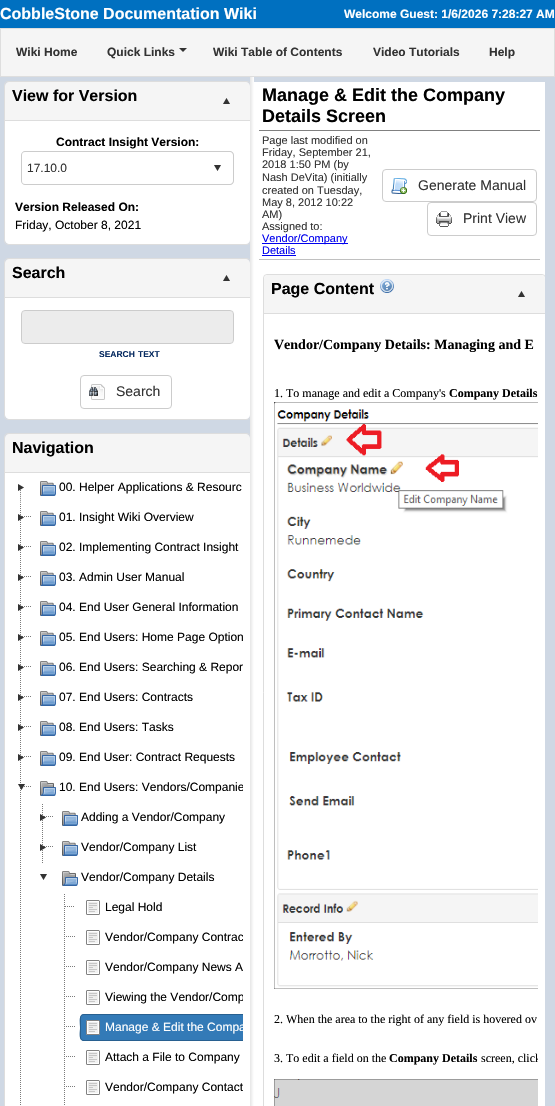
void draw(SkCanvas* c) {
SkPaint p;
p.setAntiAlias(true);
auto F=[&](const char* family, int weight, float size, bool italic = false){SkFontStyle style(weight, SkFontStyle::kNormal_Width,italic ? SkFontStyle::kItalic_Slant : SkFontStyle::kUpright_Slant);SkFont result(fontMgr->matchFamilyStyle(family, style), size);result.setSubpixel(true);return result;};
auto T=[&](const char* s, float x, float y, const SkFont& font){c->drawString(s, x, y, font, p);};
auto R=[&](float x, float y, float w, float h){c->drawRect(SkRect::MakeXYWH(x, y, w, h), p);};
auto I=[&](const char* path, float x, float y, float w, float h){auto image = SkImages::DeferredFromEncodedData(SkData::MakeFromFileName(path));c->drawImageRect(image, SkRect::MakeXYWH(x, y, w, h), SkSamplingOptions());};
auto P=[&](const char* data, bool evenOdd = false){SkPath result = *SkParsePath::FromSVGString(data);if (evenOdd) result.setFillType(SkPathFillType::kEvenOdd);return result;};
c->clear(0xffcfd8e4);
p.setColor(0xff0070c0);
R(0,0,555,28);
auto f1 = F("Liberation Sans",700,16);
p.setColor(0xffffffff);
T("CobbleStone Documentation Wiki",0,19,f1);
auto f2 = F("Liberation Sans",700,12);
T("Welcome Guest: 1/6/2026 7:28:27 AM",344,18,f2);
p.setColor(0xfff5f5f5);
c->drawRect(SkRect::MakeXYWH(.5,28.5,554,48),p);
p.setStroke(true);
p.setStrokeWidth(1);
p.setColor(0xffdedede);
c->drawRect(SkRect::MakeXYWH(.5,28.5,554,48),p);
p.setStroke(false);
p.setColor(0xff333333);
T("Wiki Home",16,56,f2);
T("Quick Links",107,56,f2);
c->drawPath(P("M179 48h8l-4 4z"),p);
T("Wiki Table of Contents",213,56,f2);
T("Video Tutorials",373,56,f2);
T("Help",489,56,f2);
{
const SkColor colors[] = {0xffffffff,0xffe6e6e6};
const float stops[] = {0,1};
const SkPoint ends[] = {{254,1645}, {250,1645}};
p.setShader(SkGradientShader::MakeLinear(ends, colors, stops, 2, SkTileMode::kClamp));
p.setAlpha(255);
}
R(250,77,4,1029);
c->save();
c->clipRect(SkRect::MakeXYWH(0,77,250,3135));
p.setStroke(true);
p.setShader(nullptr);
p.setColor(0xffdddddd);
c->drawRoundRect(SkRect::MakeXYWH(4.5,81.5,246,163),3.5,3.5,p);
c->restore();
p.setStroke(false);
p.setColor(0xfff5f5f5);
c->drawPath(P("M9 82h3v39h-7v-35c0-2 2-4 4-4z"),p);
p.setColor(0xffdddddd);
R(5,120,238,1);
c->save();
c->clipPath(P("M8 82h239c1.5 0 3 1.5 3 3v156c0 1.5-1.5 3-3 3h-239c-1.5 0-3-1.5-3-3v-156c0-1.5 1.5-3 3-3z"),true);
p.setColor(0xfff5f5f5);
c->drawPath(P("M243 82h3c2 0 4 2 4 4v35h-7z"),p);
c->restore();
p.setColor(0xffdddddd);
R(243,120,7,1);
p.setColor(0xfff5f5f5);
R(12,82,231,38);
p.setColor(0xff000000);
T("View for Version",12,101,f1);
I("1.png",223,98,7,6);
p.setColor(0xffffffff);
R(5,121,245,116);
p.setColor(0xff000000);
T("Contract Insight Version:",56,146,f2);
p.setColor(0xffcccccc);
c->drawPath(P("M25 151h176v34h-176c-2 0-4-2-4-4v-26c0-2 2-4 4-4zm0 1h176v32h-176c-2 0-3-1-3-3v-26c0-2 1-3 3-3z",true),p);
auto f3 = F("Liberation Sans",400,12);
p.setColor(0xff333333);
T("17.10.0",27,172,f3);
p.setColor(0xffcccccc);
c->drawPath(P("M201 151h29c2 0 4 2 4 4v26c0 2-2 4-4 4h-29zm0 1h29c1.5 0 3 1.5 3 3v26c0 1.5-1.5 3-3 3h-29z",true),p);
I("2.png",214,165,7,6);
p.setColor(0xff000000);
T("Version Released On:",15,211,f2);
T("Friday, October 8, 2021",15,229,f3);
c->save();
c->clipPath(P("M8 82h239c1.5 0 3 1.5 3 3v156c0 1.5-1.5 3-3 3h-239c-1.5 0-3-1.5-3-3v-156c0-1.5 1.5-3 3-3z"),true);
p.setColor(0xffffffff);
c->drawPath(P("M5 237h7v7h-3c-2 0-4-2-4-4z"),p);
c->restore();
R(12,237,231,7);
c->drawPath(P("M243 237h7v3c0 2-2 4-4 4h-3z"),p);
c->save();
c->clipRect(SkRect::MakeXYWH(0,77,250,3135));
p.setStroke(true);
p.setColor(0xffdddddd);
c->drawRoundRect(SkRect::MakeXYWH(4.5,258.5,246,161),3.5,3.5,p);
c->restore();
p.setStroke(false);
p.setColor(0xfff5f5f5);
c->drawPath(P("M9 259h3v39h-7v-35c0-2 2-4 4-4z"),p);
p.setColor(0xffdddddd);
R(5,297,238,1);
c->save();
c->clipPath(P("M8 259h239c1.5 0 3 1.5 3 3v154c0 1.5-1.5 3-3 3h-239c-1.5 0-3-1.5-3-3v-154c0-1.5 1.5-3 3-3z"),true);
p.setColor(0xfff5f5f5);
c->drawPath(P("M243 259h3c2 0 4 2 4 4v35h-7z"),p);
c->restore();
p.setColor(0xffdddddd);
R(243,297,7,1);
p.setColor(0xfff5f5f5);
R(12,259,231,38);
p.setColor(0xff000000);
T("Search",12,278,f1);
I("1.png",223,275,7,6);
p.setColor(0xffffffff);
R(5,298,245,114);
p.setColor(0xffececec);
c->drawPath(P("M25 311c-2 0-3 1-3 3v26c0 2 1 3 3 3h205c2 0 3-1 3-3v-26c0-2-1-3-3-3z"),p);
p.setStroke(true);
p.setColor(0xffcccccc);
c->drawRoundRect(SkRect::MakeXYWH(21.5,310.5,212,33),3.5,3.5,p);
auto f4 = F("Liberation Sans",700,8.5);
p.setStroke(false);
p.setColor(0xff072b61);
T("SEARCH",99,357,f4);
T("TEXT",138,357,f4);
p.setStroke(true);
p.setColor(0xffcccccc);
c->drawRoundRect(SkRect::MakeXYWH(80.5,375.5,91,33),3.5,3.5,p);
I("3.png",89,384,16,16);
auto f5 = F("Liberation Sans",400,14);
p.setStroke(false);
p.setColor(0xff333333);
T("Search",116,396,f5);
c->save();
c->clipPath(P("M8 259h239c1.5 0 3 1.5 3 3v154c0 1.5-1.5 3-3 3h-239c-1.5 0-3-1.5-3-3v-154c0-1.5 1.5-3 3-3z"),true);
p.setColor(0xffffffff);
c->drawPath(P("M5 412h7v7h-3c-2 0-4-2-4-4z"),p);
c->restore();
R(12,412,231,7);
c->drawPath(P("M243 412h7v3c0 2-2 4-4 4h-3z"),p);
c->save();
c->clipRect(SkRect::MakeXYWH(0,77,250,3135));
p.setStroke(true);
p.setColor(0xffdddddd);
c->drawRoundRect(SkRect::MakeXYWH(4.5,433.5,246,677),3.5,3.5,p);
c->restore();
p.setStroke(false);
p.setColor(0xfff5f5f5);
c->drawPath(P("M9 434h3v39h-7v-35c0-2 2-4 4-4z"),p);
p.setColor(0xffdddddd);
R(5,472,238,1);
c->save();
c->clipPath(P("M8 434h239c1.5 0 3 1.5 3 3v1210c0 1.5-1.5 3-3 3h-239c-1.5 0-3-1.5-3-3v-1210c0-1.5 1.5-3 3-3z"),true);
p.setColor(0xfff5f5f5);
c->drawPath(P("M243 434h3c2 0 4 2 4 4v35h-7z"),p);
c->restore();
p.setColor(0xffdddddd);
R(243,472,7,1);
p.setColor(0xfff5f5f5);
R(12,434,231,38);
p.setColor(0xff000000);
T("Navigation",12,453,f1);
p.setColor(0xffffffff);
R(5,473,245,633);
I("4.png",20,489,1,14);
I("5.png",18,484,6,7);
I("6.png",40,481,16,15);
p.setColor(0xff000000);
T("00. Helper Applications & Resourc",59,491,f3);
I("7.png",20,504,1,29);
I("8.png",22,516,9,1);
I("9.png",18,514,6,7);
I("6.png",40,511,16,15);
T("01. Insight Wiki Overview",59,521,f3);
I("7.png",20,534,1,29);
I("8.png",22,546,9,1);
I("9.png",18,544,6,7);
I("6.png",40,541,16,15);
T("02. Implementing Contract Insight",59,551,f3);
I("7.png",20,564,1,29);
I("8.png",22,576,9,1);
I("9.png",18,574,6,7);
I("6.png",40,571,16,15);
T("03. Admin User Manual",59,581,f3);
I("7.png",20,594,1,29);
I("8.png",22,606,9,1);
I("9.png",18,604,6,7);
I("6.png",40,601,16,15);
T("04. End User General Information",59,611,f3);
I("7.png",20,624,1,29);
I("8.png",22,636,9,1);
I("9.png",18,634,6,7);
I("6.png",40,631,16,15);
T("05. End Users: Home Page Option",59,641,f3);
I("7.png",20,654,1,29);
I("8.png",22,666,9,1);
I("9.png",18,664,6,7);
I("6.png",40,661,16,15);
T("06. End Users: Searching & Repor",59,671,f3);
I("7.png",20,684,1,29);
I("8.png",22,696,9,1);
I("9.png",18,694,6,7);
I("6.png",40,691,16,15);
T("07. End Users: Contracts",59,701,f3);
I("7.png",20,714,1,29);
I("8.png",22,726,9,1);
I("9.png",18,724,6,7);
I("6.png",40,721,16,15);
T("08. End Users: Tasks",59,731,f3);
I("7.png",20,744,1,29);
I("8.png",22,756,9,1);
I("9.png",18,754,6,7);
I("6.png",40,751,16,15);
T("09. End User: Contract Requests",59,761,f3);
I("10.png",20,774,1,331);
I("11.png",24,786,7,1);
I("12.png",18,784,7,6);
I("13.png",40,781,16,15);
c->save();
c->clipRect(SkRect::MakeXYWH(12,473,231,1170));
T("10. End Users: Vendors/Companie",59,791,f3);
c->restore();
I("7.png",42,804,1,29);
I("8.png",44,816,9,1);
I("9.png",40,814,6,7);
I("6.png",62,811,16,15);
T("Adding a Vendor/Company",81,821,f3);
I("7.png",42,834,1,29);
I("8.png",44,846,9,1);
I("9.png",40,844,6,7);
I("6.png",62,841,16,15);
T("Vendor/Company List",81,851,f3);
I("2.png",40,874,7,6);
I("13.png",62,871,16,15);
T("Vendor/Company Details",81,881,f3);
I("7.png",64,894,1,29);
I("8.png",65,906,9,1);
I("14.png",86,900,14,15);
T("Legal Hold",105,911,f3);
I("7.png",64,924,1,29);
I("8.png",66,936,9,1);
I("14.png",86,930,14,15);
c->save();
c->clipRect(SkRect::MakeXYWH(12,473,231,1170));
T("Vendor/Company Contrac",105,941,f3);
c->restore();
I("7.png",64,954,1,29);
I("8.png",66,966,9,1);
I("14.png",86,960,14,15);
T("Vendor/Company News A",105,971,f3);
I("7.png",64,984,1,29);
I("8.png",66,996,9,1);
I("14.png",86,990,14,15);
c->save();
c->clipRect(SkRect::MakeXYWH(12,473,231,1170));
T("Viewing the Vendor/Comp",105,1001,f3);
c->restore();
I("7.png",64,1014,1,29);
I("8.png",66,1026,9,1);
p.setColor(0xff337ab7);
c->drawPath(P("M84 1014h159v27h-159c-2 0-4-2-4-4v-19c0-2 2-4 4-4z"),p);
c->save();
c->clipRect(SkRect::MakeXYWH(12,473,231,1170));
p.setColor(0xff286090);
c->drawPath(P("M84 1014c-6 0-4 10-4 14c0 3-2 12 3 13h167v-1h-166c-2 0-3-1-3-3v-19c0-2 1-3 3-3h166v-1z"),p);
c->restore();
I("15.png",86,1020,14,15);
c->save();
c->clipRect(SkRect::MakeXYWH(12,473,231,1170));
p.setColor(0xffffffff);
T("Manage & Edit the Compa",105,1031,f3);
c->restore();
I("7.png",64,1044,1,29);
I("8.png",66,1056,9,1);
I("14.png",86,1050,14,15);
p.setColor(0xff000000);
T("Attach a File to Company",105,1061,f3);
I("7.png",64,1074,1,29);
I("8.png",66,1086,9,1);
I("14.png",86,1080,14,15);
T("Vendor/Company Contact",105,1091,f3);
p.setColor(0xff7b7b7b);
R(64,1104,1,1);
p.setColor(0xffffffff);
R(254,82,291,1024);
p.setColor(0xff808080);
R(259,130,281,1);
auto f6 = F("Liberation Sans",700,18);
p.setColor(0xff000000);
T("Manage & Edit the Company",262,101,f6);
T("Details Screen",262,122,f6);
p.setColor(0xffc0c0c0);
R(259,259,281,1);
auto f7 = F("Liberation Sans",400,11);
p.setColor(0xff333333);
T("Page last modified on",262,144,f7);
T("Friday, September 21,",262,156,f7);
T("2018 1:50 PM (by",262,168,f7);
T("Nash DeVita) (initially",262,181,f7);
T("created on Tuesday,",262,194,f7);
T("May 8, 2012 10:22",262,206,f7);
T("AM)",262,218,f7);
T("Assigned to:",262,230,f7);
p.setColor(0xff0000ee);
R(262,243,86,1);
T("Vendor/Company",262,242,f7);
T("Details",262,254,f7);
R(262,255,34,1);
p.setStroke(true);
p.setColor(0xffcccccc);
c->drawRoundRect(SkRect::MakeXYWH(382.5,169.5,154,32),3.5,3.5,p);
I("16.png",391,178,16,16);
p.setStroke(false);
p.setColor(0xff333333);
T("Generate Manual",418,190,f5);
p.setStroke(true);
p.setColor(0xffcccccc);
c->drawRoundRect(SkRect::MakeXYWH(427.5,202.5,109,33),3.5,3.5,p);
I("17.png",436,211,16,16);
p.setStroke(false);
p.setColor(0xff333333);
T("Print View",463,223,f5);
c->save();
c->clipRect(SkRect::MakeXYWH(254,77,291,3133));
p.setStroke(true);
p.setColor(0xffdddddd);
c->drawRoundRect(SkRect::MakeXYWH(263.5,274.5,282,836),3.5,3.5,p);
c->restore();
p.setStroke(false);
p.setColor(0xfff5f5f5);
c->drawPath(P("M268 275h3v39h-7v-35c0-2 2-4 4-4z"),p);
p.setColor(0xffdddddd);
R(264,313,274,1);
c->save();
c->clipPath(P("M267 275h275c1.5 0 3 1.5 3 3v2333c0 1.5-1.5 3-3 3h-275c-1.5 0-3-1.5-3-3v-2333c0-1.5 1.5-3 3-3z"),true);
p.setColor(0xfff5f5f5);
c->drawPath(P("M538 275h3c2 0 4 2 4 4v35h-7z"),p);
c->restore();
p.setColor(0xffdddddd);
R(538,313,7,1);
p.setColor(0xfff5f5f5);
R(271,275,267,38);
p.setColor(0xff000000);
T("Page Content",271,294,f1);
I("18.png",380,279,14,14);
I("1.png",518,291,7,6);
auto f8 = F("Liberation Serif",700,14);
T("Vendor/Company Details: Managing and E",274,349,f8);
auto f9 = F("Liberation Serif",400,12);
T("1. To manage and edit a Company's",274,397,f9);
auto f10 = F("Liberation Serif",700,12);
T("Company Details",449,397,f10);
I("19.png",274,402,264,587);
T("2. When the area to the right of any field is hovered ov",274,1023,f9);
T("3. To edit a field on the",274,1062,f9);
T("Company Details",389,1062,f10);
c->save();
c->clipRect(SkRect::MakeXYWH(271,314,267,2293));
T("screen, click",481,1062,f9);
c->restore();
I("20.png",274,1079,264,27);
}
